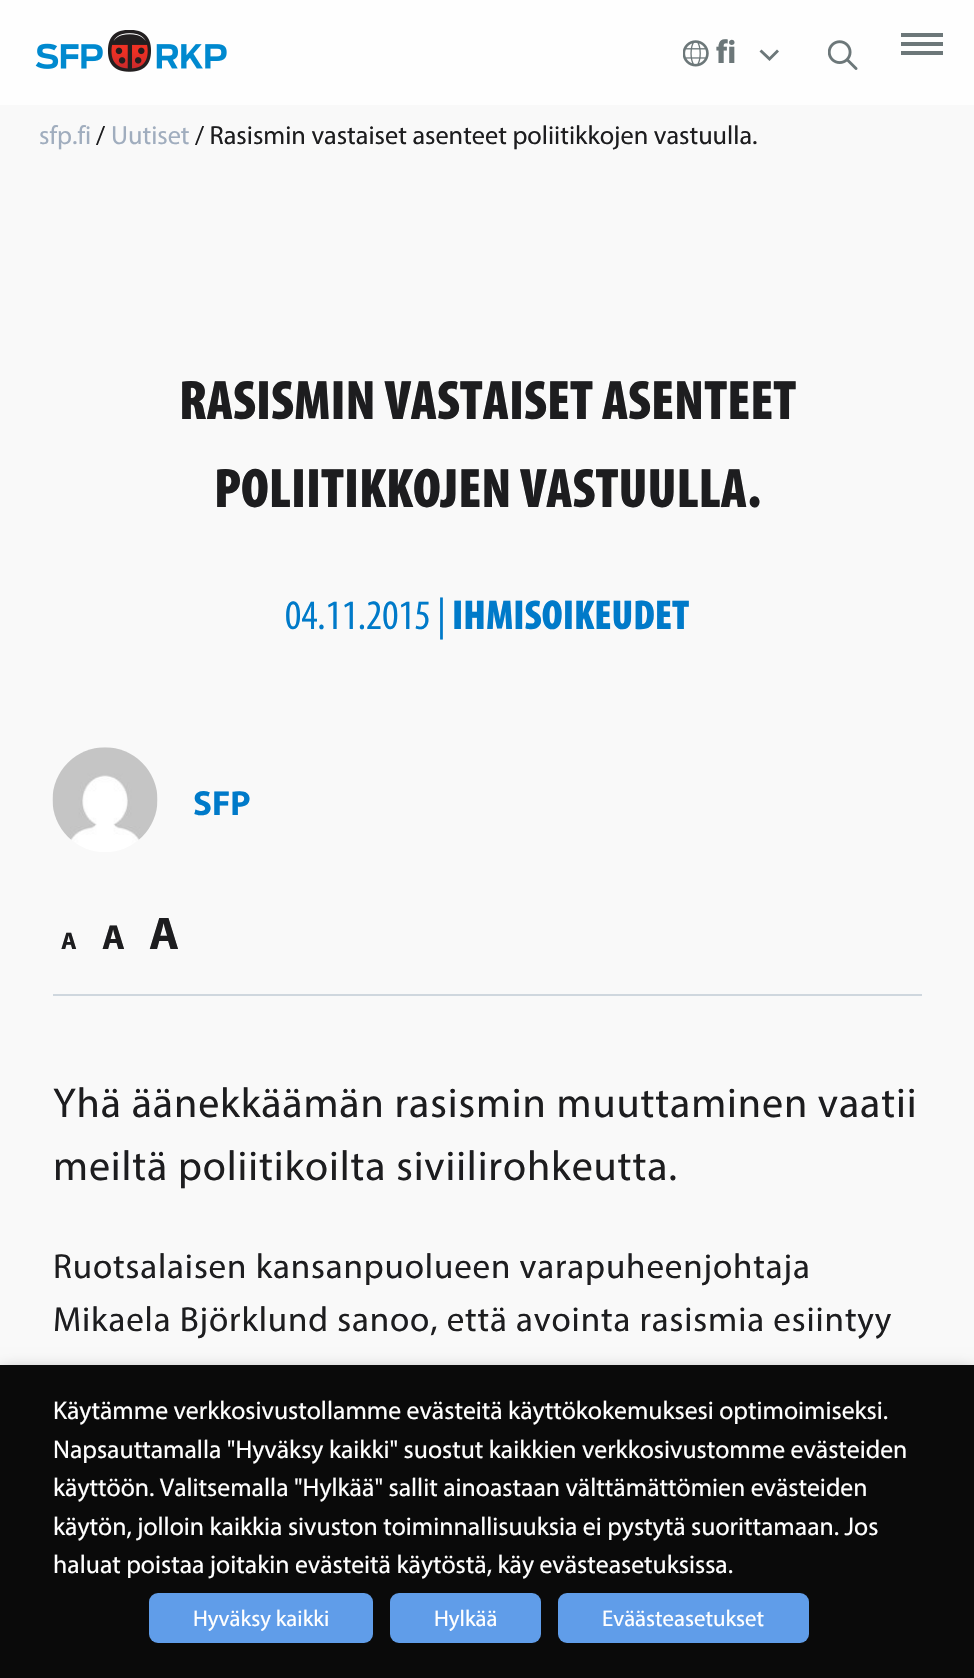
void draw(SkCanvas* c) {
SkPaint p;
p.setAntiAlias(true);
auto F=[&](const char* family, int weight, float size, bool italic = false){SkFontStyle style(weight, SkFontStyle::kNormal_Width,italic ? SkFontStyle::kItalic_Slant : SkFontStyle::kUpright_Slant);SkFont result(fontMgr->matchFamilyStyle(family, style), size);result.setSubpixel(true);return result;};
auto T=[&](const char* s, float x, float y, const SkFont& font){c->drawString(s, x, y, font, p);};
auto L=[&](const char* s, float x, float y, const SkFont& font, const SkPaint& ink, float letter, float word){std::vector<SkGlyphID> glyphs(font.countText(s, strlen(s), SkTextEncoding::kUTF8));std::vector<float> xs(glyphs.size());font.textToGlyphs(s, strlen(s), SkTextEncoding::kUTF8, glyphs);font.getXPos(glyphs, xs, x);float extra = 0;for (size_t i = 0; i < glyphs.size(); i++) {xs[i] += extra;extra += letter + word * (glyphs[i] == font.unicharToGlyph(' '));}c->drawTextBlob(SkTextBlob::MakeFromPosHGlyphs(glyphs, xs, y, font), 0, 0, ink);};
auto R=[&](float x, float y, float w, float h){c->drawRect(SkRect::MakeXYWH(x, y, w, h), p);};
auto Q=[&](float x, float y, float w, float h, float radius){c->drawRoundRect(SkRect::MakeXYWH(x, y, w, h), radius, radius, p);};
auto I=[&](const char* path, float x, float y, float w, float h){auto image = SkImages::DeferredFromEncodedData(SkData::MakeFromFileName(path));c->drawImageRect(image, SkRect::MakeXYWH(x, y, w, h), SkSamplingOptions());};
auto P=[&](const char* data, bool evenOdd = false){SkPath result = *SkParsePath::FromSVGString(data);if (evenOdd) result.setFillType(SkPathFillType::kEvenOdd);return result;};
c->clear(0xfff9f9f9);
p.setColor(0xfffefefe);
R(0,0,974,105);
I("1.png",35,30,192,42);
I("2.png",683,40,26,27);
p.setColor(0xff6c7779);
c->drawPath(P("M777 49.5l2 2l-9.5 9.5l-10-9.5l2-2l8 7.5z"),p);
auto f1 = F("Myriad",700,33);
T("fi",716,63,f1);
I("3.png",828,40,30,30);
R(901,33,42,4);
R(901,42,42,4);
R(901,51,42,4);
auto f2 = F("Myriad",400,26.25);
p.setColor(0xffa0adbe);
T("sfp.fi",39,144,f2);
p.setColor(0xff1d1d1f);
T("/",96,144,f2);
p.setColor(0xffa0adbe);
T("Uutiset",111,144,f2);
p.setColor(0xff1d1d1f);
T("/ Rasismin vastaiset asenteet poliitikkojen vastuulla.",195,144,f2);
auto f3 = F("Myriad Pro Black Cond",900,56);
T("RASISMIN VASTAISET ASENTEET",179,419,f3);
T("POLIITIKKOJEN VASTUULLA.",214,507,f3);
auto f4 = F("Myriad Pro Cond",400,42);
p.setColor(0xff007ac9);
T("04.11.2015 |",285,629,f4);
auto f5 = F("Myriad Pro Black Cond",900,42);
T("IHMISOIKEUDET",452,629,f5);
p.setColor(0xffcfd7de);
R(53,994,869,2);
I("4.png",52,747,106,105);
auto f6 = F("Myriad",700,35);
p.setColor(0xff007ac9);
T("SFP",193,815,f6);
auto f7 = F("Myriad",700,24);
p.setColor(0xff1d1d1f);
T("A",61,949,f7);
T("A",102,949,f6);
auto f8 = F("Myriad",700,46);
T("A",149,949,f8);
auto f9 = F("Myriad",400,42);
L("Yhä äänekkäämän rasismin muuttaminen vaatii",53,1117,f9,p,.88,0);
L("meiltä poliitikoilta siviilirohkeutta.",53,1180,f9,p,.88,0);
auto f10 = F("Myriad",400,35);
L("Ruotsalaisen kansanpuolueen varapuheenjohtaja",53,1278,f10,p,.88,0);
L("Mikaela Björklund sanoo, että avointa rasismia esiintyy",53,1331,f10,p,.88,0);
p.setColor(0x80000000);
p.setMaskFilter(SkMaskFilter::MakeBlur(kNormal_SkBlurStyle, 9));
c->drawRect(SkRect::MakeXYWH(0,1374,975,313),p);
p.setMaskFilter(nullptr);
p.setColor(0xff0a0a0a);
R(0,1365,974,313);
auto f11 = F("Myriad",400,25.7);
p.setColor(0xffffffff);
T("Käytämme verkkosivustollamme evästeitä käyttökokemuksesi optimoimiseksi.",53,1419,f11);
T("Napsauttamalla \"Hyväksy kaikki\" suostut kaikkien verkkosivustomme evästeiden",53,1458,f11);
T("käyttöön. Valitsemalla \"Hylkää\" sallit ainoastaan välttämättömien evästeiden",53,1496,f11);
T("käytön, jolloin kaikkia sivuston toiminnallisuuksia ei pystytä suorittamaan. Jos",53,1535,f11);
T("haluat poistaa joitakin evästeitä käytöstä, käy evästeasetuksissa.",53,1573,f11);
p.setColor(0xff609de9);
Q(149,1593,224,50,9);
auto f12 = F("Myriad",400,22.75);
p.setColor(0xffffffff);
T("Hyväksy kaikki",193,1626,f12);
p.setColor(0xff609de9);
Q(390,1593,151,50,9);
p.setColor(0xffffffff);
T("Hylkää",434,1626,f12);
p.setColor(0xff609de9);
Q(558,1593,251,50,9);
p.setColor(0xffffffff);
T("Eväästeasetukset",602,1626,f12);
}
